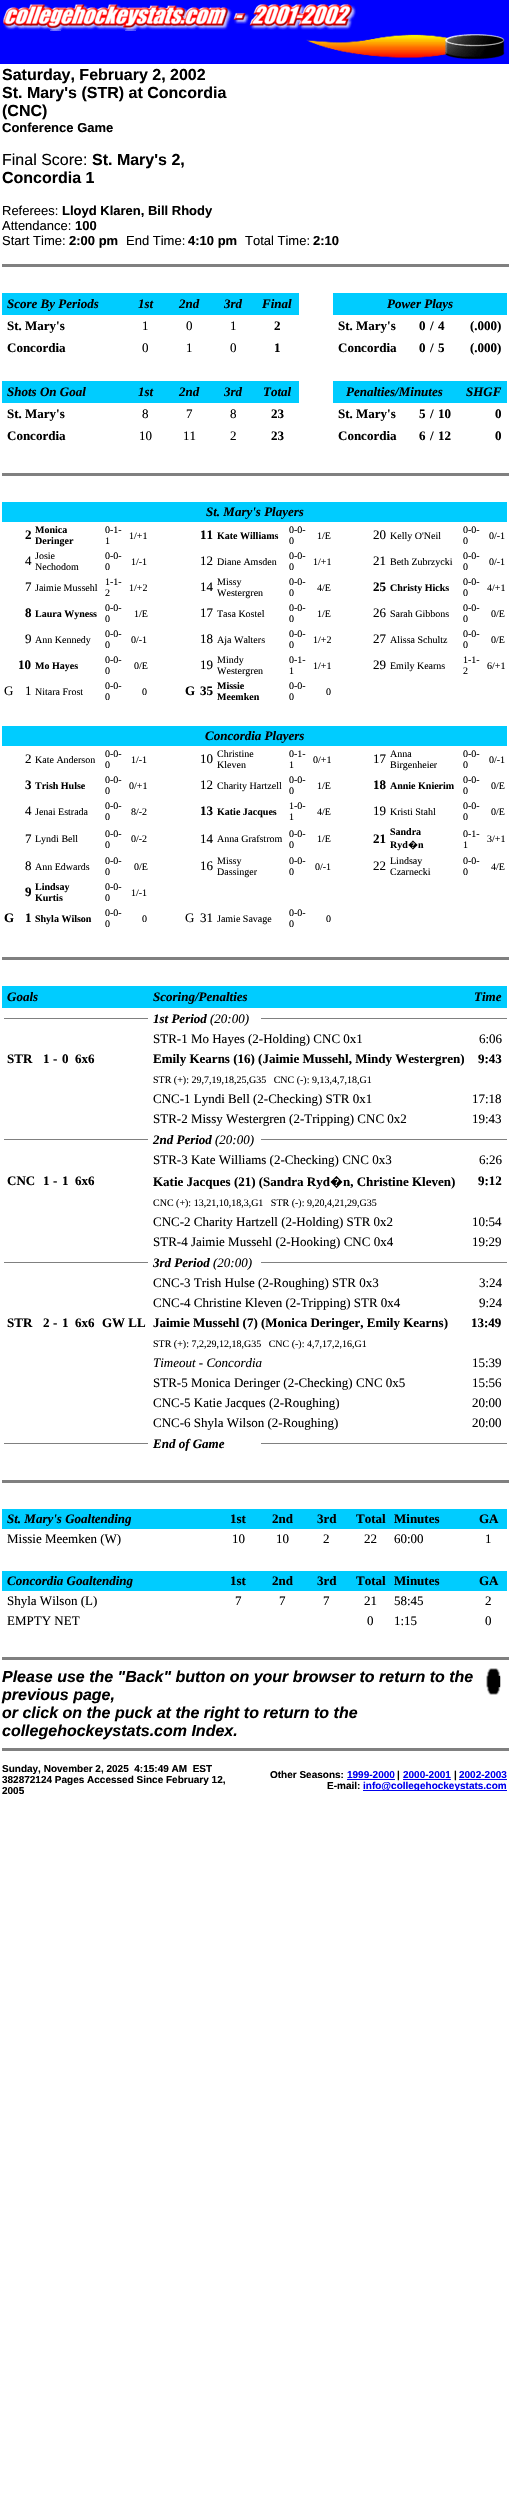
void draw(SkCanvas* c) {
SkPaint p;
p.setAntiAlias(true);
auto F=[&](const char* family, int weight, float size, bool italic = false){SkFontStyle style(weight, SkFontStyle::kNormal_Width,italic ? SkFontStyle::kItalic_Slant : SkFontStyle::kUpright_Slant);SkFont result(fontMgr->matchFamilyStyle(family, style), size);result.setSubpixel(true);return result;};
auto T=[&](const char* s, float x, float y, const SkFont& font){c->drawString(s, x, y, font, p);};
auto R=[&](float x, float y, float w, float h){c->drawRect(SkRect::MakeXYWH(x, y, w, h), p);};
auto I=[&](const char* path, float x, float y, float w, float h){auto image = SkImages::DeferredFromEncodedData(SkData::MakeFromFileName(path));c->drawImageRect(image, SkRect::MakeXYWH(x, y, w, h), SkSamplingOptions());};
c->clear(0xffffffff);
p.setColor(0xff0000ff);
R(0,0,509,64);
I("1.png",3,4,353,27);
I("2.png",306,34,199,26);
auto f1 = F("Liberation Sans",700,16);
p.setColor(0xff000000);
T("Saturday, February 2, 2002",2,80,f1);
T("St. Mary's (STR) at Concordia",2,98,f1);
T("(CNC)",2,116,f1);
auto f2 = F("Liberation Sans",700,13);
T("Conference Game",2,132,f2);
auto f3 = F("Liberation Sans",400,16);
T("Final Score:",2,165,f3);
T("St. Mary's 2,",92,165,f1);
T("Concordia 1",2,183,f1);
auto f4 = F("Liberation Sans",400,13);
T("Referees:",2,215,f4);
T("Lloyd Klaren, Bill Rhody",62,215,f2);
T("Attendance:",2,230,f4);
T("100",75,230,f2);
T("Start Time:",2,245,f4);
T("2:00 pm",69,245,f2);
T("End Time:",126,245,f4);
T("4:10 pm",188,245,f2);
T("Total Time:",245,245,f4);
T("2:10",313,245,f2);
p.setColor(0xff808080);
R(2,264,507,3);
p.setColor(0xff00ccff);
R(2,293,297,22);
auto f5 = F("Liberation Serif",700,13,true);
p.setColor(0xff000000);
T("Score By Periods",7,308,f5);
T("1st",138,308,f5);
T("2nd",179,308,f5);
T("3rd",224,308,f5);
T("Final",262,308,f5);
p.setColor(0xff00ccff);
R(333,293,174,22);
p.setColor(0xff000000);
T("Power Plays",387,308,f5);
auto f6 = F("Liberation Serif",700,13);
T("St. Mary's",7,330,f6);
auto f7 = F("Liberation Serif",400,13);
T("1",142,330,f7);
T("0",186,330,f7);
T("1",230,330,f7);
T("2",274,330,f6);
T("St. Mary's",338,330,f6);
T("0",419,330,f6);
T("/",430,330,f6);
T("4",438,330,f6);
T("(.000)",470,330,f6);
T("Concordia",7,352,f6);
T("0",142,352,f7);
T("1",186,352,f7);
T("0",230,352,f7);
T("1",274,352,f6);
T("Concordia",338,352,f6);
T("0",419,352,f6);
T("/",430,352,f6);
T("5",438,352,f6);
T("(.000)",470,352,f6);
p.setColor(0xff00ccff);
R(2,381,297,22);
p.setColor(0xff000000);
T("Shots On Goal",7,396,f5);
T("1st",138,396,f5);
T("2nd",179,396,f5);
T("3rd",224,396,f5);
T("Total",263,396,f5);
p.setColor(0xff00ccff);
R(333,381,174,22);
p.setColor(0xff000000);
T("Penalties/Minutes",346,396,f5);
T("SHGF",466,396,f5);
T("St. Mary's",7,418,f6);
T("8",142,418,f7);
T("7",186,418,f7);
T("8",230,418,f7);
T("23",271,418,f6);
T("St. Mary's",338,418,f6);
T("5",419,418,f6);
T("/",430,418,f6);
T("10",438,418,f6);
T("0",495,418,f6);
T("Concordia",7,440,f6);
T("10",139,440,f7);
T("11",183,440,f7);
T("2",230,440,f7);
T("23",271,440,f6);
T("Concordia",338,440,f6);
T("6",419,440,f6);
T("/",430,440,f6);
T("12",438,440,f6);
T("0",495,440,f6);
p.setColor(0xff808080);
R(2,473,507,3);
p.setColor(0xff00ccff);
R(2,502,505,20);
p.setColor(0xff000000);
T("St. Mary's Players",206,516,f5);
T("2",25,539,f6);
auto f8 = F("Liberation Serif",700,10);
T("Monica",35,533,f8);
T("Deringer",35,544,f8);
auto f9 = F("Liberation Serif",400,10);
T("0-1-",105,533,f9);
T("1",105,544,f9);
T("1/+1",129,539,f9);
T("11",200,539,f6);
T("Kate Williams",217,539,f8);
T("0-0-",289,533,f9);
T("0",289,544,f9);
T("1/E",317,539,f9);
T("20",373,539,f7);
T("Kelly O'Neil",390,539,f9);
T("0-0-",463,533,f9);
T("0",463,544,f9);
T("0/-1",489,539,f9);
T("4",25,565,f7);
T("Josie",35,559,f9);
T("Nechodom",35,570,f9);
T("0-0-",105,559,f9);
T("0",105,570,f9);
T("1/-1",131,565,f9);
T("12",200,565,f7);
T("Diane Amsden",217,565,f9);
T("0-0-",289,559,f9);
T("0",289,570,f9);
T("1/+1",313,565,f9);
T("21",373,565,f7);
T("Beth Zubrzycki",390,565,f9);
T("0-0-",463,559,f9);
T("0",463,570,f9);
T("0/-1",489,565,f9);
T("7",25,591,f7);
T("Jaimie Mussehl",35,591,f9);
T("1-1-",105,585,f9);
T("2",105,596,f9);
T("1/+2",129,591,f9);
T("14",200,591,f7);
T("Missy",217,585,f9);
T("Westergren",217,596,f9);
T("0-0-",289,585,f9);
T("0",289,596,f9);
T("4/E",317,591,f9);
T("25",373,591,f6);
T("Christy Hicks",390,591,f8);
T("0-0-",463,585,f9);
T("0",463,596,f9);
T("4/+1",487,591,f9);
T("8",25,617,f6);
T("Laura Wyness",35,617,f8);
T("0-0-",105,611,f9);
T("0",105,622,f9);
T("1/E",134,617,f9);
T("17",200,617,f7);
T("Tasa Kostel",217,617,f9);
T("0-0-",289,611,f9);
T("0",289,622,f9);
T("1/E",317,617,f9);
T("26",373,617,f7);
T("Sarah Gibbons",390,617,f9);
T("0-0-",463,611,f9);
T("0",463,622,f9);
T("0/E",491,617,f9);
T("9",25,643,f7);
T("Ann Kennedy",35,643,f9);
T("0-0-",105,637,f9);
T("0",105,648,f9);
T("0/-1",131,643,f9);
T("18",200,643,f7);
T("Aja Walters",217,643,f9);
T("0-0-",289,637,f9);
T("0",289,648,f9);
T("1/+2",313,643,f9);
T("27",373,643,f7);
T("Alissa Schultz",390,643,f9);
T("0-0-",463,637,f9);
T("0",463,648,f9);
T("0/E",491,643,f9);
T("10",18,669,f6);
T("Mo Hayes",35,669,f8);
T("0-0-",105,663,f9);
T("0",105,674,f9);
T("0/E",134,669,f9);
T("19",200,669,f7);
T("Mindy",217,663,f9);
T("Westergren",217,674,f9);
T("0-1-",289,663,f9);
T("1",289,674,f9);
T("1/+1",313,669,f9);
T("29",373,669,f7);
T("Emily Kearns",390,669,f9);
T("1-1-",463,663,f9);
T("2",463,674,f9);
T("6/+1",487,669,f9);
T("G",4,695,f7);
T("1",25,695,f7);
T("Nitara Frost",35,695,f9);
T("0-0-",105,689,f9);
T("0",105,700,f9);
T("0",142,695,f9);
T("G",185,695,f6);
T("35",200,695,f6);
T("Missie",217,689,f8);
T("Meemken",217,700,f8);
T("0-0-",289,689,f9);
T("0",289,700,f9);
T("0",326,695,f9);
p.setColor(0xff00ccff);
R(2,726,505,20);
p.setColor(0xff000000);
T("Concordia Players",205,740,f5);
T("2",25,763,f7);
T("Kate Anderson",35,763,f9);
T("0-0-",105,757,f9);
T("0",105,768,f9);
T("1/-1",131,763,f9);
T("10",200,763,f7);
T("Christine",217,757,f9);
T("Kleven",217,768,f9);
T("0-1-",289,757,f9);
T("1",289,768,f9);
T("0/+1",313,763,f9);
T("17",373,763,f7);
T("Anna",390,757,f9);
T("Birgenheier",390,768,f9);
T("0-0-",463,757,f9);
T("0",463,768,f9);
T("0/-1",489,763,f9);
T("3",25,789,f6);
T("Trish Hulse",35,789,f8);
T("0-0-",105,783,f9);
T("0",105,794,f9);
T("0/+1",129,789,f9);
T("12",200,789,f7);
T("Charity Hartzell",217,789,f9);
T("0-0-",289,783,f9);
T("0",289,794,f9);
T("1/E",317,789,f9);
T("18",373,789,f6);
T("Annie Knierim",390,789,f8);
T("0-0-",463,783,f9);
T("0",463,794,f9);
T("0/E",491,789,f9);
T("4",25,815,f7);
T("Jenai Estrada",35,815,f9);
T("0-0-",105,809,f9);
T("0",105,820,f9);
T("8/-2",131,815,f9);
T("13",200,815,f6);
T("Katie Jacques",217,815,f8);
T("1-0-",289,809,f9);
T("1",289,820,f9);
T("4/E",317,815,f9);
T("19",373,815,f7);
T("Kristi Stahl",390,815,f9);
T("0-0-",463,809,f9);
T("0",463,820,f9);
T("0/E",491,815,f9);
T("7",25,843,f7);
T("Lyndi Bell",35,842,f9);
T("0-0-",105,837,f9);
T("0",105,848,f9);
T("0/-2",131,842,f9);
T("14",200,843,f7);
T("Anna Grafstrom",217,842,f9);
T("0-0-",289,837,f9);
T("0",289,848,f9);
T("1/E",317,842,f9);
T("21",373,843,f6);
T("Sandra",390,835,f8);
T("Ryd",390,848,f8);
auto f10 = F("Noto Sans",700,10);
T("�",408,848,f10);
T("n",418,848,f8);
T("0-1-",463,837,f9);
T("1",463,848,f9);
T("3/+1",487,842,f9);
T("8",25,870,f7);
T("Ann Edwards",35,870,f9);
T("0-0-",105,864,f9);
T("0",105,875,f9);
T("0/E",134,870,f9);
T("16",200,870,f7);
T("Missy",217,864,f9);
T("Dassinger",217,875,f9);
T("0-0-",289,864,f9);
T("0",289,875,f9);
T("0/-1",315,870,f9);
T("22",373,870,f7);
T("Lindsay",390,864,f9);
T("Czarnecki",390,875,f9);
T("0-0-",463,864,f9);
T("0",463,875,f9);
T("4/E",491,870,f9);
T("9",25,896,f6);
T("Lindsay",35,890,f8);
T("Kurtis",35,901,f8);
T("0-0-",105,890,f9);
T("0",105,901,f9);
T("1/-1",131,896,f9);
T("G",4,922,f6);
T("1",25,922,f6);
T("Shyla Wilson",35,922,f8);
T("0-0-",105,916,f9);
T("0",105,927,f9);
T("0",142,922,f9);
T("G",185,922,f7);
T("31",200,922,f7);
T("Jamie Savage",217,922,f9);
T("0-0-",289,916,f9);
T("0",289,927,f9);
T("0",326,922,f9);
p.setColor(0xff808080);
R(2,957,507,3);
p.setColor(0xff00ccff);
R(2,986,505,22);
p.setColor(0xff000000);
T("Goals",7,1001,f5);
T("Scoring/Penalties",153,1001,f5);
T("Time",474,1001,f5);
p.setColor(0xff808080);
R(4,1018,144,1);
p.setColor(0xff000000);
T("1st Period",153,1023,f5);
auto f11 = F("Liberation Serif",400,13,true);
T("(20:00)",210,1023,f11);
p.setColor(0xff808080);
R(261,1018,246,1);
p.setColor(0xff000000);
T("STR-1 Mo Hayes (2-Holding) CNC 0x1",153,1043,f7);
T("6:06",479,1043,f7);
T("STR",7,1063,f6);
T("1",43,1063,f6);
T("-",53,1063,f6);
T("0",62,1063,f6);
T("6x6",75,1063,f6);
T("Emily Kearns (16) (Jaimie Mussehl, Mindy Westergren)",153,1063,f6);
T("9:43",478,1063,f6);
T("STR (+): 29,7,19,18,25,G35   CNC (-): 9,13,4,7,18,G1",153,1083,f9);
T("CNC-1 Lyndi Bell (2-Checking) STR 0x1",153,1103,f7);
T("17:18",472,1103,f7);
T("STR-2 Missy Westergren (2-Tripping) CNC 0x2",153,1123,f7);
T("19:43",472,1123,f7);
p.setColor(0xff808080);
R(4,1139,144,1);
p.setColor(0xff000000);
T("2nd Period",153,1144,f5);
T("(20:00)",215,1144,f11);
p.setColor(0xff808080);
R(261,1139,246,1);
p.setColor(0xff000000);
T("STR-3 Kate Williams (2-Checking) CNC 0x3",153,1164,f7);
T("6:26",479,1164,f7);
T("CNC",7,1185,f6);
T("1",43,1185,f6);
T("-",53,1185,f6);
T("1",62,1185,f6);
T("6x6",75,1185,f6);
T("Katie Jacques (21) (Sandra Ryd",153,1186,f6);
auto f12 = F("Noto Sans",700,13);
T("�",330,1186,f12);
T("n, Christine Kleven)",343,1186,f6);
T("9:12",478,1185,f6);
T("CNC (+): 13,21,10,18,3,G1   STR (-): 9,20,4,21,29,G35",153,1206,f9);
T("CNC-2 Charity Hartzell (2-Holding) STR 0x2",153,1226,f7);
T("10:54",472,1226,f7);
T("STR-4 Jaimie Mussehl (2-Hooking) CNC 0x4",153,1246,f7);
T("19:29",472,1246,f7);
p.setColor(0xff808080);
R(4,1262,144,1);
p.setColor(0xff000000);
T("3rd Period",153,1267,f5);
T("(20:00)",213,1267,f11);
p.setColor(0xff808080);
R(261,1262,246,1);
p.setColor(0xff000000);
T("CNC-3 Trish Hulse (2-Roughing) STR 0x3",153,1287,f7);
T("3:24",479,1287,f7);
T("CNC-4 Christine Kleven (2-Tripping) STR 0x4",153,1307,f7);
T("9:24",479,1307,f7);
T("STR",7,1327,f6);
T("2",43,1327,f6);
T("-",53,1327,f6);
T("1",62,1327,f6);
T("6x6",75,1327,f6);
T("GW LL",102,1327,f6);
T("Jaimie Mussehl (7) (Monica Deringer, Emily Kearns)",153,1327,f6);
T("13:49",471,1327,f6);
T("STR (+): 7,2,29,12,18,G35   CNC (-): 4,7,17,2,16,G1",153,1347,f9);
T("Timeout - Concordia",153,1367,f11);
T("15:39",472,1367,f7);
T("STR-5 Monica Deringer (2-Checking) CNC 0x5",153,1387,f7);
T("15:56",472,1387,f7);
T("CNC-5 Katie Jacques (2-Roughing)",153,1407,f7);
T("20:00",472,1407,f7);
T("CNC-6 Shyla Wilson (2-Roughing)",153,1427,f7);
T("20:00",472,1427,f7);
p.setColor(0xff808080);
R(4,1443,144,1);
p.setColor(0xff000000);
T("End of Game",153,1448,f5);
p.setColor(0xff808080);
R(261,1443,246,1);
R(2,1480,507,3);
p.setColor(0xff00ccff);
R(2,1509,505,20);
p.setColor(0xff000000);
T("St. Mary's Goaltending",7,1523,f5);
T("1st",230,1523,f6);
T("2nd",272,1523,f6);
T("3rd",317,1523,f6);
T("Total",356,1523,f6);
T("Minutes",394,1523,f6);
T("GA",479,1523,f6);
T("Missie Meemken (W)",7,1543,f7);
T("10",232,1543,f7);
T("10",276,1543,f7);
T("2",323,1543,f7);
T("22",364,1543,f7);
T("60:00",394,1543,f7);
T("1",485,1543,f7);
p.setColor(0xff00ccff);
R(2,1571,505,20);
p.setColor(0xff000000);
T("Concordia Goaltending",7,1585,f5);
T("1st",230,1585,f6);
T("2nd",272,1585,f6);
T("3rd",317,1585,f6);
T("Total",356,1585,f6);
T("Minutes",394,1585,f6);
T("GA",479,1585,f6);
T("Shyla Wilson (L)",7,1605,f7);
T("7",235,1605,f7);
T("7",279,1605,f7);
T("7",323,1605,f7);
T("21",364,1605,f7);
T("58:45",394,1605,f7);
T("2",485,1605,f7);
T("EMPTY NET",7,1625,f7);
T("0",367,1625,f7);
T("1:15",394,1625,f7);
T("0",485,1625,f7);
p.setColor(0xff808080);
R(2,1657,507,3);
auto f13 = F("Liberation Sans",700,16,true);
p.setColor(0xff000000);
T("Please use the \"Back\" button on your browser to return to the",2,1682,f13);
I("3.png",486,1668,15,27);
T("previous page,",2,1700,f13);
T("or click on the puck at the right to return to the",2,1718,f13);
T("collegehockeystats.com Index.",2,1736,f13);
p.setColor(0xff808080);
R(2,1748,507,3);
auto f14 = F("Liberation Sans",700,10);
p.setColor(0xff000000);
T("Sunday, November 2, 2025  4:15:49 AM  EST",2,1772,f14);
T("382872124 Pages Accessed Since February 12,",2,1783,f14);
T("2005",2,1794,f14);
T("Other Seasons:",270,1778,f14);
p.setColor(0xff0000ee);
T("1999-2000",347,1778,f14);
R(347,1779,48,1);
p.setColor(0xff000000);
T("|",397,1778,f14);
p.setColor(0xff0000ee);
T("2000-2001",403,1778,f14);
R(403,1779,48,1);
p.setColor(0xff000000);
T("|",454,1778,f14);
p.setColor(0xff0000ee);
T("2002-2003",459,1778,f14);
R(459,1779,48,1);
p.setColor(0xff000000);
T("E-mail:",327,1789,f14);
p.setColor(0xff0000ee);
R(363,1790,144,1);
T("info@collegehockeystats.com",363,1789,f14);
}
